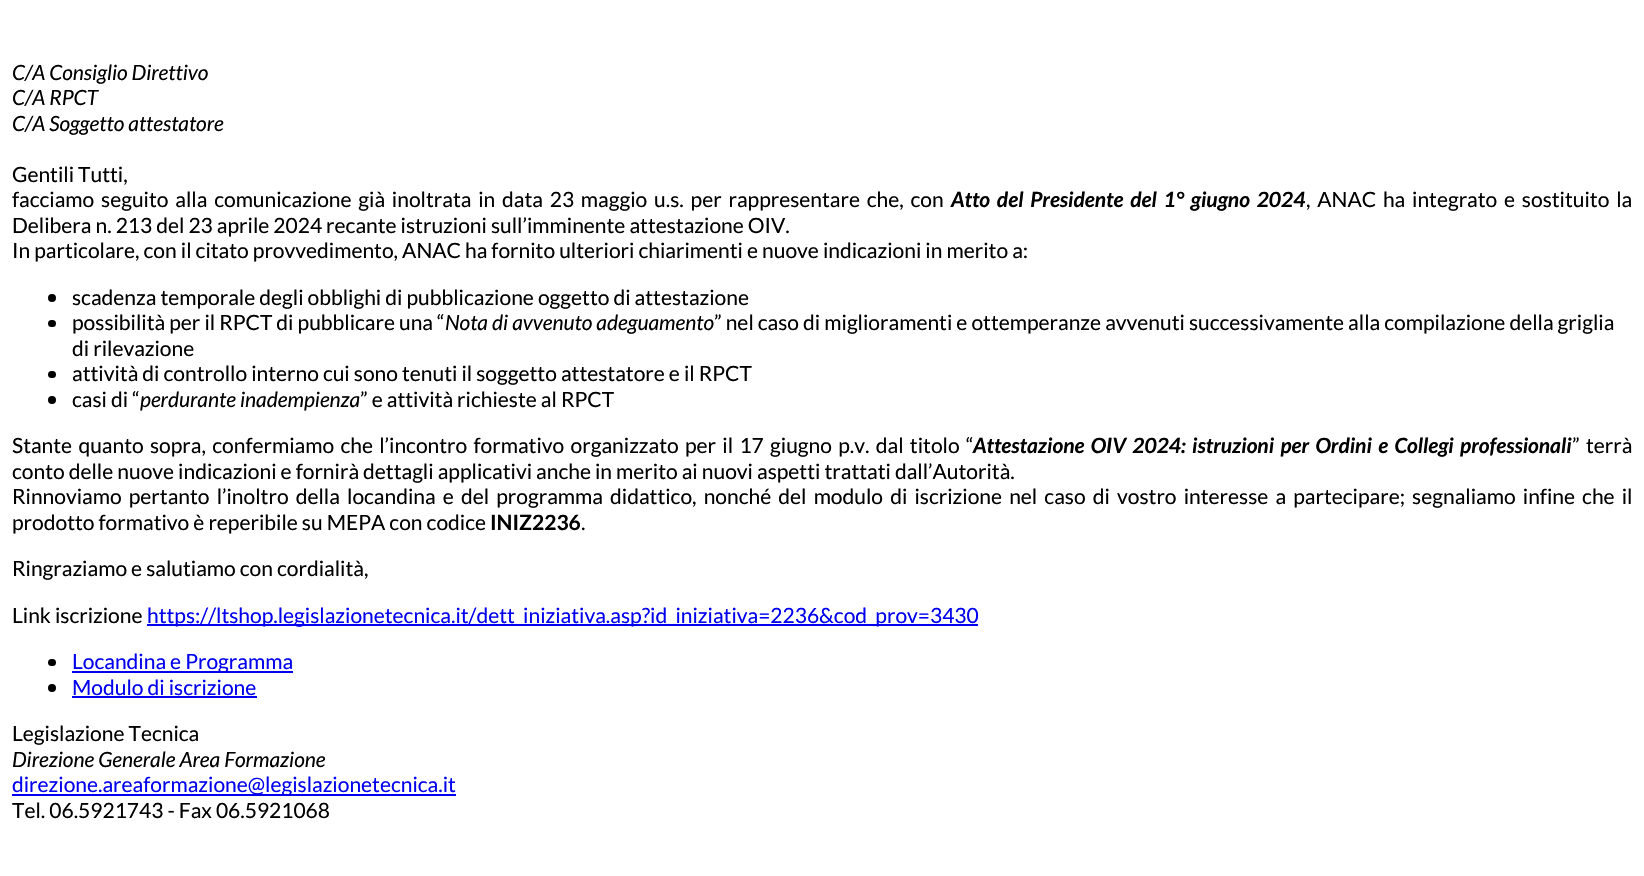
void draw(SkCanvas* c) {
SkPaint p;
p.setAntiAlias(true);
auto F=[&](const char* family, int weight, float size, bool italic = false){SkFontStyle style(weight, SkFontStyle::kNormal_Width,italic ? SkFontStyle::kItalic_Slant : SkFontStyle::kUpright_Slant);SkFont result(fontMgr->matchFamilyStyle(family, style), size);result.setSubpixel(true);return result;};
auto T=[&](const char* s, float x, float y, const SkFont& font){c->drawString(s, x, y, font, p);};
auto L=[&](const char* s, float x, float y, const SkFont& font, const SkPaint& ink, float letter, float word){std::vector<SkGlyphID> glyphs(font.countText(s, strlen(s), SkTextEncoding::kUTF8));std::vector<float> xs(glyphs.size());font.textToGlyphs(s, strlen(s), SkTextEncoding::kUTF8, glyphs);font.getXPos(glyphs, xs, x);float extra = 0;for (size_t i = 0; i < glyphs.size(); i++) {xs[i] += extra;extra += letter + word * (glyphs[i] == font.unicharToGlyph(' '));}c->drawTextBlob(SkTextBlob::MakeFromPosHGlyphs(glyphs, xs, y, font), 0, 0, ink);};
auto R=[&](float x, float y, float w, float h){c->drawRect(SkRect::MakeXYWH(x, y, w, h), p);};
auto Q=[&](float x, float y, float w, float h, float radius){c->drawRoundRect(SkRect::MakeXYWH(x, y, w, h), radius, radius, p);};
c->clear(0xffffffff);
auto f1 = F("Lato",400,21,true);
p.setColor(0xff000000);
T("C/A Consiglio Direttivo",12,80,f1);
T("C/A RPCT",12,105,f1);
T("C/A Soggetto attestatore",12,131,f1);
auto f2 = F("Lato",400,21);
T("Gentili Tutti,",12,182,f2);
L("facciamo seguito alla comunicazione già inoltrata in data 23 maggio u.s. per rappresentare che, con",12,207,f2,p,0,2.75);
auto f3 = F("Lato",700,21,true);
L("Atto del Presidente del 1° giugno 2024",951,207,f3,p,0,2.75);
L(", ANAC ha integrato e sostituito la",1306,207,f2,p,0,2.75);
T("Delibera n. 213 del 23 aprile 2024 recante istruzioni sull’imminente attestazione OIV.",12,233,f2);
T("In particolare, con il citato provvedimento, ANAC ha fornito ulteriori chiarimenti e nuove indicazioni in merito a:",12,258,f2);
c->drawCircle(52,298,4,p);
T("scadenza temporale degli obblighi di pubblicazione oggetto di attestazione",72,305,f2);
Q(48,320,8,7,3.5);
T("possibilità per il RPCT di pubblicare una “",72,330,f2);
T("Nota di avvenuto adeguamento",445,330,f1);
T("” nel caso di miglioramenti e ottemperanze avvenuti successivamente alla compilazione della griglia",714,330,f2);
T("di rilevazione",72,356,f2);
Q(48,371,8,7,3.5);
T("attività di controllo interno cui sono tenuti il soggetto attestatore e il RPCT",72,381,f2);
c->drawCircle(52,400,4,p);
T("casi di “",72,407,f2);
T("perdurante inadempienza",140,407,f1);
T("” e attività richieste al RPCT",360,407,f2);
L("Stante quanto sopra, confermiamo che l’incontro formativo organizzato per il 17 giugno p.v. dal titolo “",12,453,f2,p,0,2.25);
L("Attestazione OIV 2024: istruzioni per Ordini e Collegi professionali",973,453,f3,p,0,2.25);
L("” terrà",1572,453,f2,p,0,2.25);
T("conto delle nuove indicazioni e fornirà dettagli applicativi anche in merito ai nuovi aspetti trattati dall’Autorità.",12,479,f2);
L("Rinnoviamo pertanto l’inoltro della locandina e del programma didattico, nonché del modulo di iscrizione nel caso di vostro interesse a partecipare; segnaliamo infine che il",12,504,f2,p,0,3.1);
T("prodotto formativo è reperibile su MEPA con codice",12,530,f2);
auto f4 = F("Lato",700,21);
T("INIZ2236",490,530,f4);
T(".",581,530,f2);
T("Ringraziamo e salutiamo con cordialità,",12,576,f2);
T("Link iscrizione",12,623,f2);
p.setColor(0xff0000ee);
R(147,624,831,2);
T("https://ltshop.legislazionetecnica.it/dett_iniziativa.asp?id_iniziativa=2236&cod_prov=3430",147,623,f2);
p.setColor(0xff000000);
Q(48,659,8,7,3.5);
p.setColor(0xff0000ee);
R(72,671,221,2);
T("Locandina e Programma",72,669,f2);
p.setColor(0xff000000);
c->drawCircle(52,688,4,p);
p.setColor(0xff0000ee);
T("Modulo di iscrizione",72,695,f2);
R(72,696,185,2);
p.setColor(0xff000000);
T("Legislazione Tecnica",12,741,f2);
T("Direzione Generale Area Formazione",12,767,f1);
p.setColor(0xff0000ee);
R(12,794,444,2);
T("direzione.areaformazione@legislazionetecnica.it",12,792,f2);
p.setColor(0xff000000);
T("Tel. 06.5921743 - Fax 06.5921068",12,818,f2);
}
